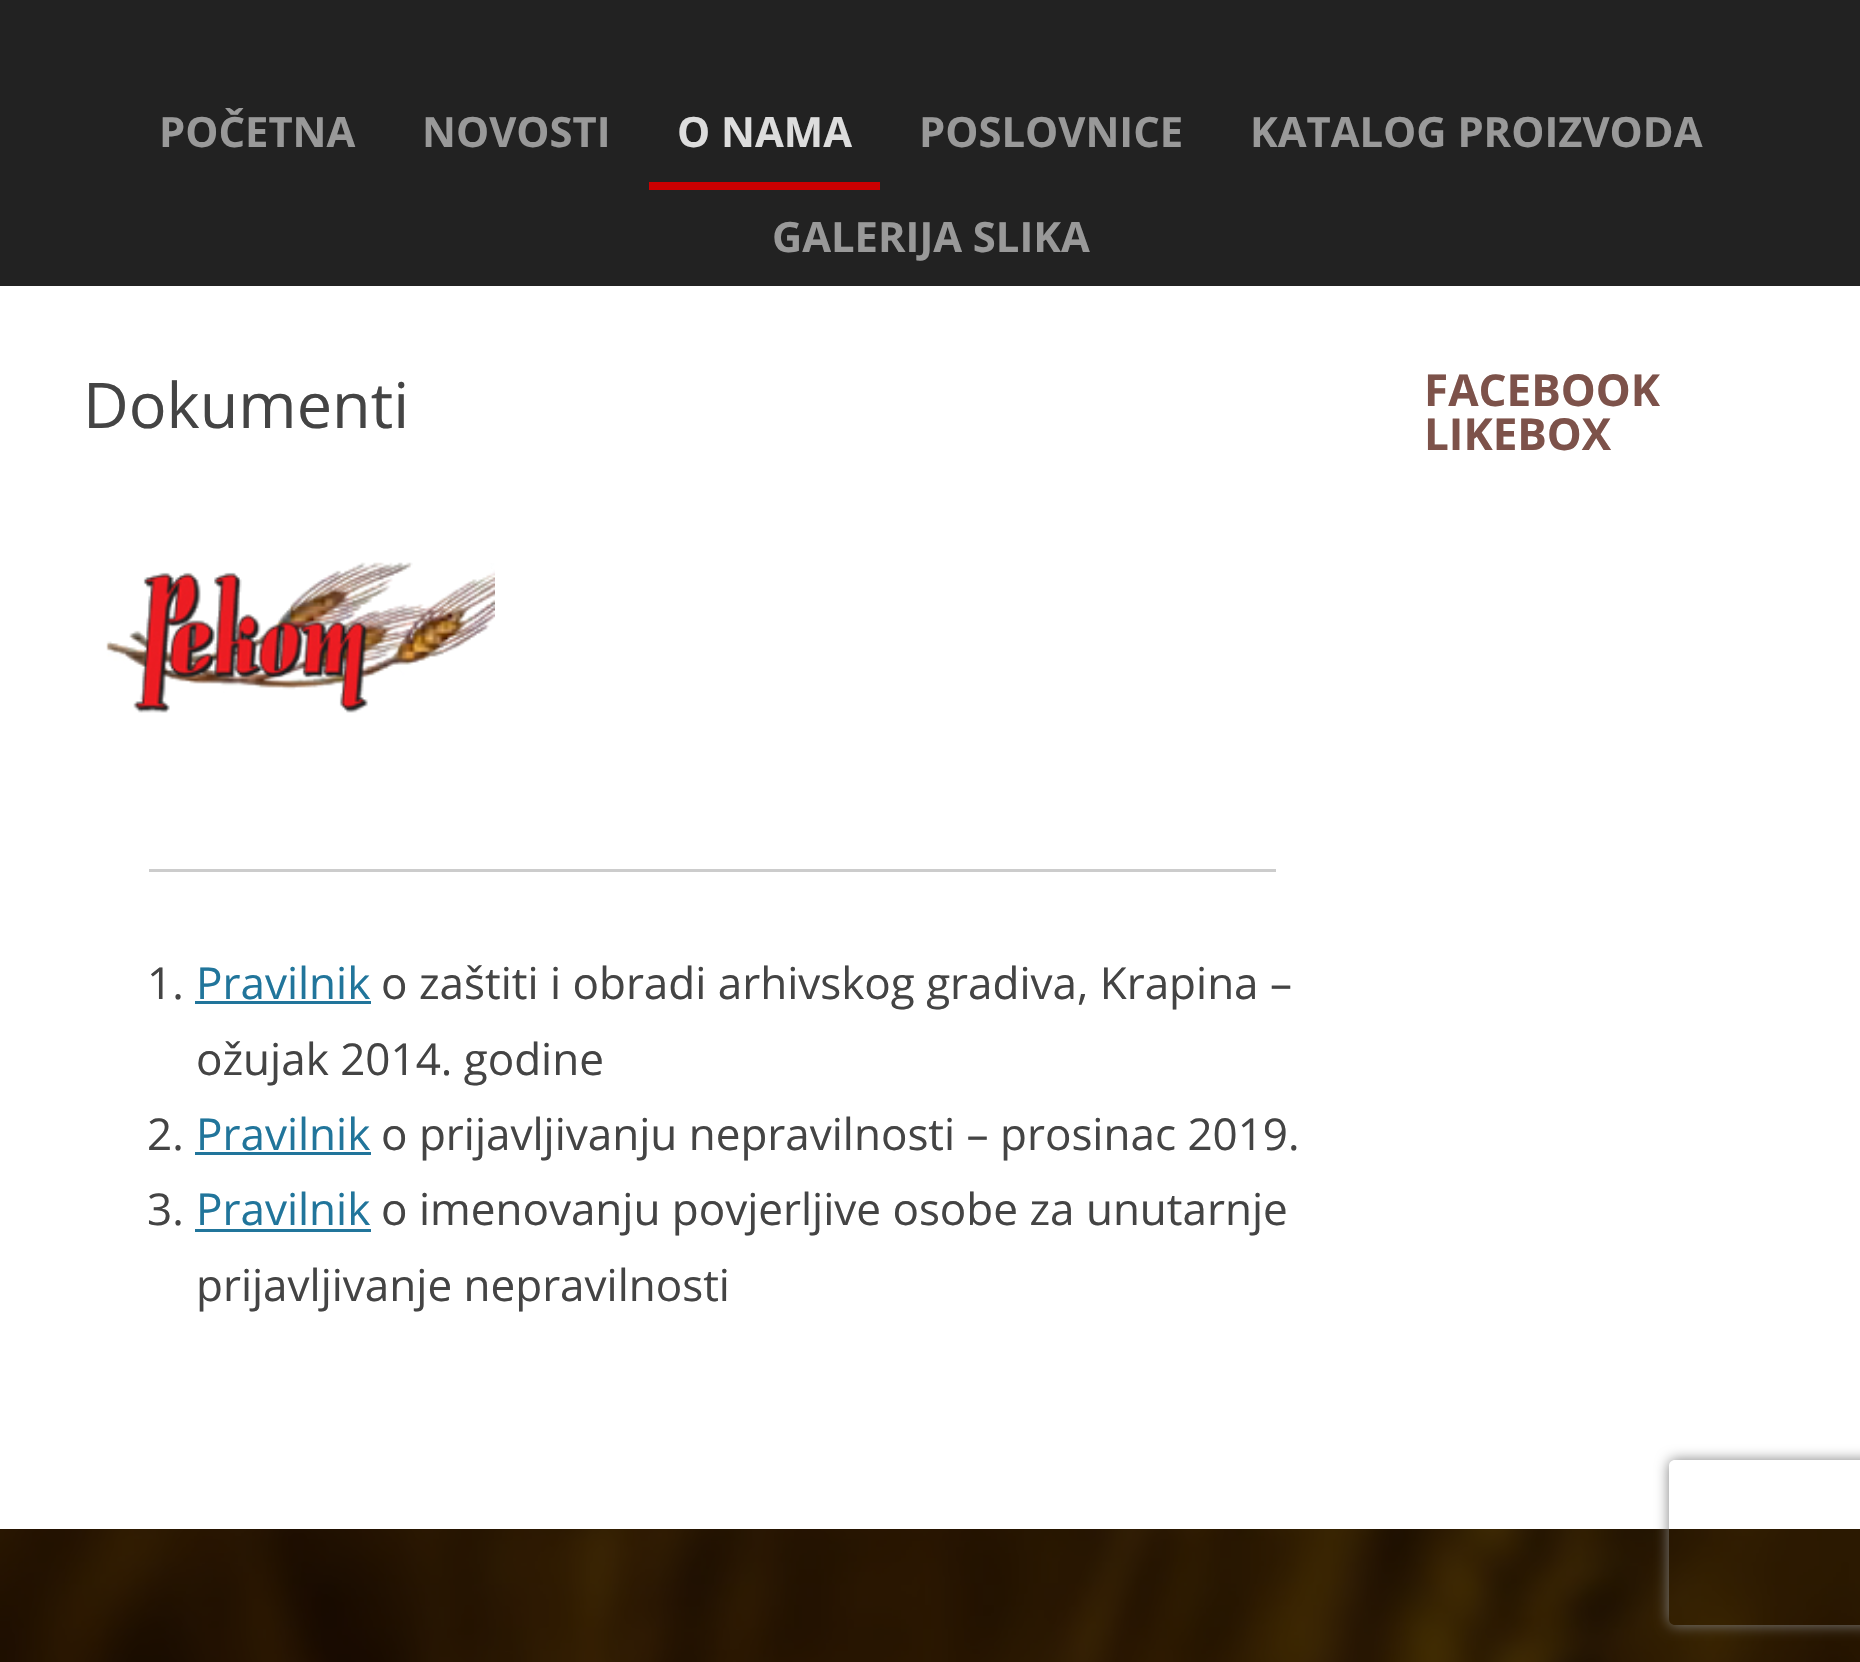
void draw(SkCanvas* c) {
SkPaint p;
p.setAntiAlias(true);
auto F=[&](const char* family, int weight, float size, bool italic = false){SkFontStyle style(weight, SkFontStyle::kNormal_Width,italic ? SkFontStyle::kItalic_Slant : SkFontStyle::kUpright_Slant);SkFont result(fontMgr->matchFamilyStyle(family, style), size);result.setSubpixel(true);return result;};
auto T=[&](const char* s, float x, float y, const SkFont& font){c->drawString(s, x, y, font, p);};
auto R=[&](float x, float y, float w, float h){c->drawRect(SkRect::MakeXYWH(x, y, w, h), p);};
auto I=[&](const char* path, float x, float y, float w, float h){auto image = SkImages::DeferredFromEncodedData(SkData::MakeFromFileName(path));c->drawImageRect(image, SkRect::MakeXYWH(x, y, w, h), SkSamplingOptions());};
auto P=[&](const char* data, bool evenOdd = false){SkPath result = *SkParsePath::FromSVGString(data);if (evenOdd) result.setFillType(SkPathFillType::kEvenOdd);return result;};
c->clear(0xffffffff);
I("1.png",0,1529,1860,133);
p.setColor(0xff222222);
R(0,0,1860,286);
auto f1 = F("Open Sans",700,41.75);
p.setColor(0xff999999);
T("POČETNA",159,147,f1);
T("NOVOSTI",422,147,f1);
p.setColor(0xffcb0001);
R(649,182,231,8);
p.setColor(0xffdddddd);
T("O NAMA",677,147,f1);
p.setColor(0xff999999);
T("POSLOVNICE",919,147,f1);
T("KATALOG PROIZVODA",1250,147,f1);
T("GALERIJA SLIKA",772,252,f1);
auto f2 = F("Open Sans",400,63);
p.setColor(0xff444444);
T("Dokumenti",83,428,f2);
I("2.png",106,562,389,151);
p.setColor(0xffcccccc);
R(149,869,1127,3);
auto f3 = F("Open Sans",400,44);
p.setColor(0xff444444);
T("1.",147,999,f3);
p.setColor(0xff21759b);
T("Pravilnik",196,999,f3);
R(195,1001,176,3);
p.setColor(0xff444444);
T("o zaštiti i obradi arhivskog gradiva, Krapina –",381,999,f3);
T("ožujak 2014. godine",196,1075,f3);
T("2.",147,1150,f3);
p.setColor(0xff21759b);
T("Pravilnik",196,1150,f3);
R(195,1152,176,3);
p.setColor(0xff444444);
T("o prijavljivanju nepravilnosti – prosinac 2019.",381,1150,f3);
T("3.",147,1225,f3);
p.setColor(0xff21759b);
T("Pravilnik",196,1225,f3);
R(195,1229,176,3);
p.setColor(0xff444444);
T("o imenovanju povjerljive osobe za unutarnje",381,1225,f3);
T("prijavljivanje nepravilnosti",196,1301,f3);
auto f4 = F("Open Sans",700,44);
p.setColor(0xff7d524a);
T("FACEBOOK",1424,406,f4);
T("LIKEBOX",1424,450,f4);
p.setColor(0xb3000000);
R(0,1529,1860,133);
c->save();
c->clipPath(P("M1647 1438h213v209h-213zm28 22h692c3.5 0 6 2.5 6 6v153c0 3.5-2.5 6-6 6h-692c-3.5 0-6-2.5-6-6v-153c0-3.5 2.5-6 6-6z",true),true);
p.setColor(0xff808080);
p.setMaskFilter(SkMaskFilter::MakeBlur(kNormal_SkBlurStyle, 7));
c->drawRoundRect(SkRect::MakeXYWH(1669,1460,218,165),6,6,p);
p.setMaskFilter(nullptr);
c->restore();
}
